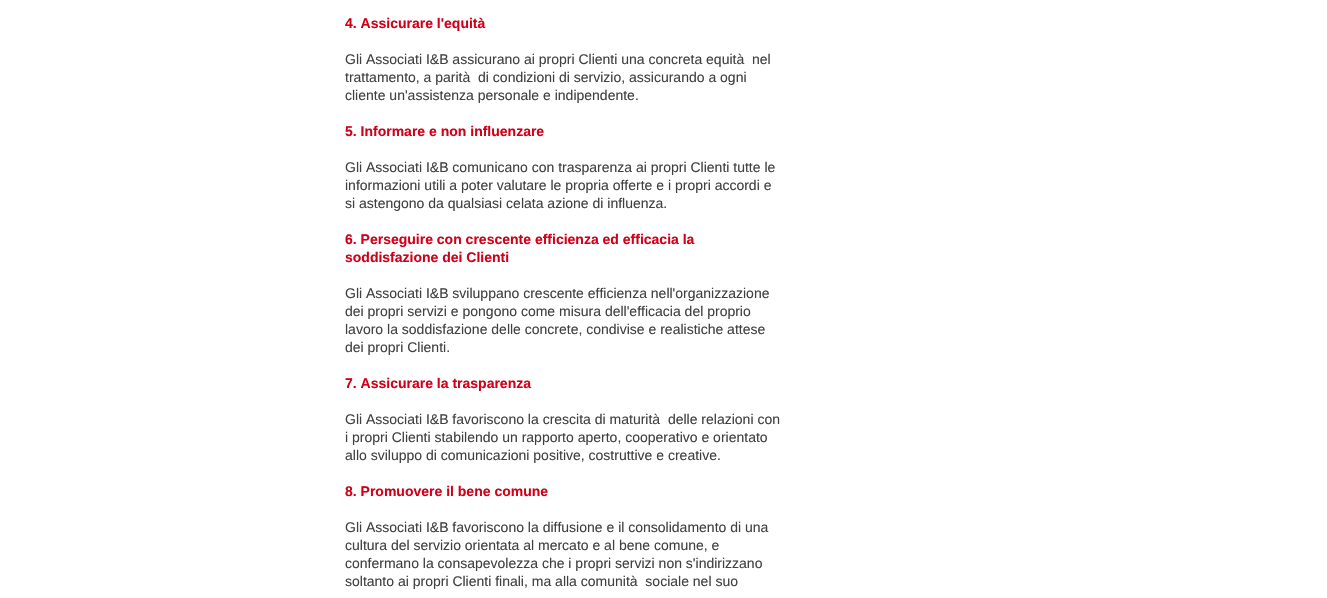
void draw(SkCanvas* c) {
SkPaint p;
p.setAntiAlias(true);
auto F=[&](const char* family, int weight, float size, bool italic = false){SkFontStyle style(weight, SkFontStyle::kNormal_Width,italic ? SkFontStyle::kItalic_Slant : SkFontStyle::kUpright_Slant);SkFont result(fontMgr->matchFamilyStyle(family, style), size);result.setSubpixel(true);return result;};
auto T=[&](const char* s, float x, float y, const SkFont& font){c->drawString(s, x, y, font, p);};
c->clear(0xffffffff);
auto f1 = F("Liberation Sans",700,14);
p.setColor(0xffd10019);
T("4. Assicurare l'equità",345,28,f1);
auto f2 = F("Liberation Sans",400,14);
p.setColor(0xff404040);
T("Gli Associati I&B assicurano ai propri Clienti una concreta equità  nel",345,64,f2);
T("trattamento, a parità  di condizioni di servizio, assicurando a ogni",345,82,f2);
T("cliente un'assistenza personale e indipendente.",345,100,f2);
p.setColor(0xffd10019);
T("5. Informare e non influenzare",345,136,f1);
p.setColor(0xff404040);
T("Gli Associati I&B comunicano con trasparenza ai propri Clienti tutte le",345,172,f2);
T("informazioni utili a poter valutare le propria offerte e i propri accordi e",345,190,f2);
T("si astengono da qualsiasi celata azione di influenza.",345,208,f2);
p.setColor(0xffd10019);
T("6. Perseguire con crescente efficienza ed efficacia la",345,244,f1);
T("soddisfazione dei Clienti",345,262,f1);
p.setColor(0xff404040);
T("Gli Associati I&B sviluppano crescente efficienza nell'organizzazione",345,298,f2);
T("dei propri servizi e pongono come misura dell'efficacia del proprio",345,316,f2);
T("lavoro la soddisfazione delle concrete, condivise e realistiche attese",345,334,f2);
T("dei propri Clienti.",345,352,f2);
p.setColor(0xffd10019);
T("7. Assicurare la trasparenza",345,388,f1);
p.setColor(0xff404040);
T("Gli Associati I&B favoriscono la crescita di maturità  delle relazioni con",345,424,f2);
T("i propri Clienti stabilendo un rapporto aperto, cooperativo e orientato",345,442,f2);
T("allo sviluppo di comunicazioni positive, costruttive e creative.",345,460,f2);
p.setColor(0xffd10019);
T("8. Promuovere il bene comune",345,496,f1);
p.setColor(0xff404040);
T("Gli Associati I&B favoriscono la diffusione e il consolidamento di una",345,532,f2);
T("cultura del servizio orientata al mercato e al bene comune, e",345,550,f2);
T("confermano la consapevolezza che i propri servizi non s'indirizzano",345,568,f2);
T("soltanto ai propri Clienti finali, ma alla comunità  sociale nel suo",345,586,f2);
}
